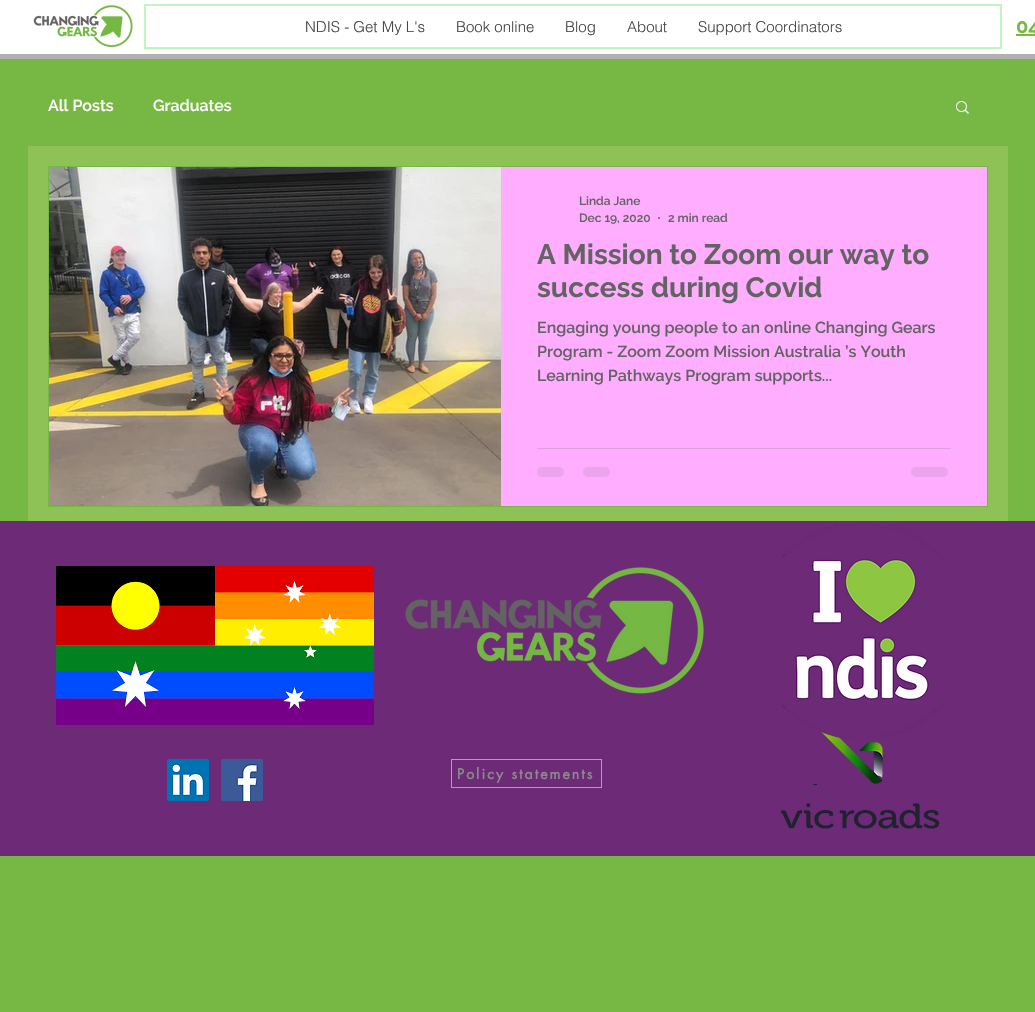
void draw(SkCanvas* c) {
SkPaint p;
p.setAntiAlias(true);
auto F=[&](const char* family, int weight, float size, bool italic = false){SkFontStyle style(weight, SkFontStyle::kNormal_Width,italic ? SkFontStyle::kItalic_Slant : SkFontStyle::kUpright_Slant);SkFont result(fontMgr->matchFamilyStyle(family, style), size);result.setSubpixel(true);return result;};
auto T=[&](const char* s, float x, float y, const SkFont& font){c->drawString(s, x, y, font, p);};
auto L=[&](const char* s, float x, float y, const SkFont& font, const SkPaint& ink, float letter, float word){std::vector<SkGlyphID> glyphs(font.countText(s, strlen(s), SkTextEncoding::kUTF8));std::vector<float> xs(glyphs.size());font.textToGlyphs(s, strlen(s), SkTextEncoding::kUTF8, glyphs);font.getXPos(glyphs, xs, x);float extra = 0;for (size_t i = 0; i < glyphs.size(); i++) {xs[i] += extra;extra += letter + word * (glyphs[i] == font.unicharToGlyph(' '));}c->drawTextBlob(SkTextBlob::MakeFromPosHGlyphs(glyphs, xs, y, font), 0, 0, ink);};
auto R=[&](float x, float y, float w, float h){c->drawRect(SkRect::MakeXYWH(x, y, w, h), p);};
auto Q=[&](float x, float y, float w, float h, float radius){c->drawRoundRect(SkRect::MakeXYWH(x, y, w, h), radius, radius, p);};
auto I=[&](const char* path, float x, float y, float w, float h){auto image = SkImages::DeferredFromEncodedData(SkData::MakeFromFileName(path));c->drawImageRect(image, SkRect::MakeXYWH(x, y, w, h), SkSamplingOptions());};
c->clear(0xff76b843);
p.setColor(0xffb2b1b1);
R(0,54,1035,5);
p.setColor(0xffffffff);
R(0,0,1035,54);
I("1.png",33,5,100,43);
p.setStroke(true);
p.setStrokeWidth(2);
p.setColor(0xffbff5c1);
c->drawRect(SkRect::MakeXYWH(145,5,856,43),p);
auto f1 = F("helvetica",300,15);
p.setStroke(false);
p.setColor(0xff444444);
T("NDIS - Get My L's",305,32,f1);
T("Book online",456,32,f1);
T("Blog",565,32,f1);
T("About",627,32,f1);
T("Support Coordinators",698,32,f1);
p.setColor(0xff76b843);
R(1016,34,19,2);
auto f2 = F("Raleway",700,20);
T("04",1016,33,f2);
p.setColor(0xff8ec256);
R(28,146,980,375);
auto f3 = F("Raleway",600,16);
p.setColor(0xffffffff);
T("All Posts",48,111,f3);
T("Graduates",153,111,f3);
I("2.png",956,101,13,13);
p.setStroke(true);
p.setStrokeWidth(1);
p.setColor(0xff76b843);
c->drawRect(SkRect::MakeXYWH(48.5,166.5,939,340),p);
I("3.png",49,167,452,339);
p.setStroke(false);
p.setColor(0xffffadff);
R(501,167,486,339);
auto f4 = F("Raleway",600,12);
p.setColor(0xff646363);
T("Linda Jane",579,205,f4);
T("Dec 19, 2020",579,222,f4);
c->drawCircle(659,218,1,p);
T("2 min read",668,222,f4);
auto f5 = F("Raleway",700,28);
T("A Mission to Zoom our way to",537,264,f5);
T("success during Covid",537,297,f5);
T("Engaging young people to an online Changing Gears",537,333,f3);
T("Program - Zoom Zoom Mission Australia ’s Youth",537,357,f3);
T("Learning Pathways Program supports...",537,381,f3);
p.setColor(0xffe09ee0);
R(537,448,414,1);
p.setColor(0xffeca4ec);
Q(537,467,27,10,5);
Q(583,467,27,10,5);
Q(911,467,37,10,5);
p.setColor(0xff6c2a77);
R(0,521,1035,335);
I("4.png",56,566,318,159);
I("5.png",405,567,299,127);
I("9.png",780,731,160,98);
I("6.png",782,525,161,213);
I("7.png",167,759,42,42);
I("8.png",221,759,42,42);
p.setStroke(true);
p.setColor(0xffb899be);
c->drawRect(SkRect::MakeXYWH(451.5,759.5,150,28),p);
auto f6 = F("futura",700,14);
p.setStroke(false);
p.setColor(0xff8b8a8a);
L("Policy statements",457,779,f6,p,2.1,0);
}
